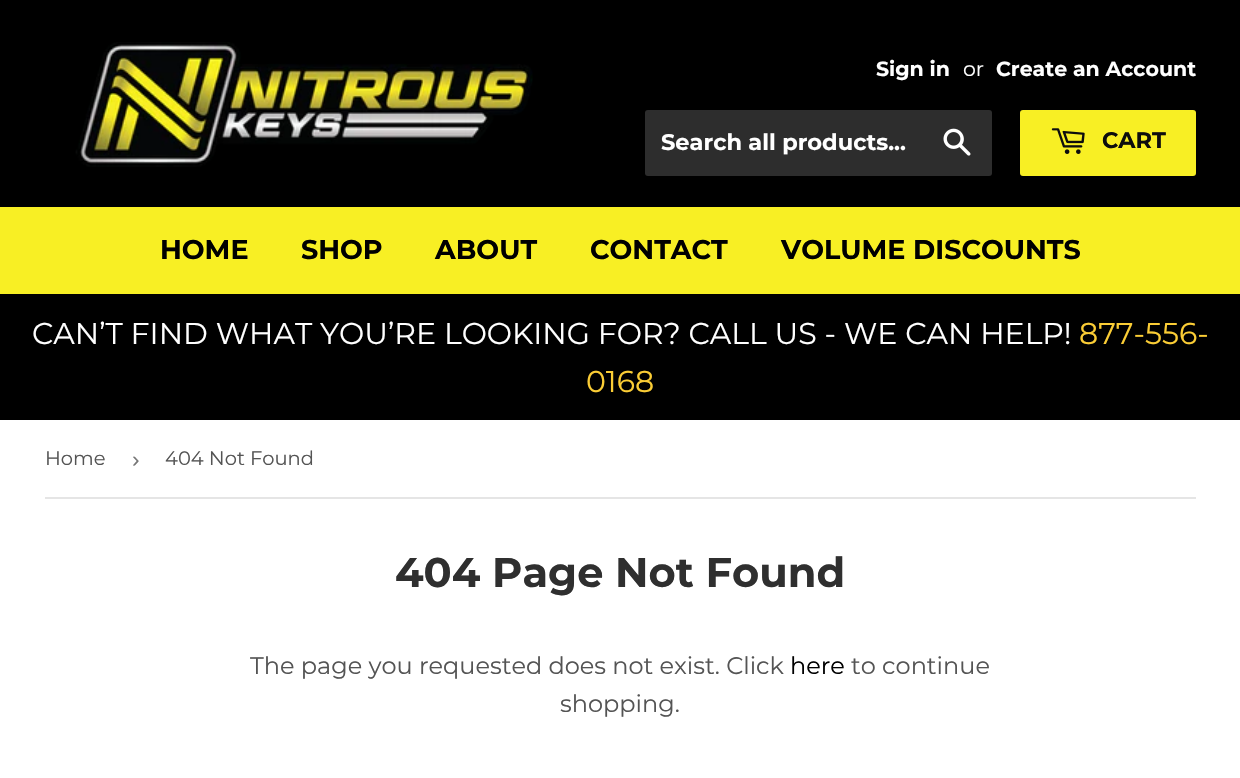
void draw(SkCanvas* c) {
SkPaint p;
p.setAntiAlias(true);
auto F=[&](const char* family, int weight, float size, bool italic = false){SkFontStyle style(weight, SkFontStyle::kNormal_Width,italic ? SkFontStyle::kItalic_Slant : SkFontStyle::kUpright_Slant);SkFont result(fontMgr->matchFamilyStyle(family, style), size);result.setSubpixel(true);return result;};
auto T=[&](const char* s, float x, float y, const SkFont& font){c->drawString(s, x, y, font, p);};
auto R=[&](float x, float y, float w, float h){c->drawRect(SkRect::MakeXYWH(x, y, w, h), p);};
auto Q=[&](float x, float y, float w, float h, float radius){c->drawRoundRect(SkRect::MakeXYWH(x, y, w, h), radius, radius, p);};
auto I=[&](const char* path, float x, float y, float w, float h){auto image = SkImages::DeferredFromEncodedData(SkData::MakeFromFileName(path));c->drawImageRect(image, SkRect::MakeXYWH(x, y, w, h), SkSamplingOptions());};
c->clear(0xffffffff);
p.setColor(0xff000000);
R(0,0,1240,207);
I("1.png",75,42,458,125);
auto f1 = F("Montserrat",700,20.5);
p.setColor(0xffffffff);
T("Sign in",876,76,f1);
auto f2 = F("Montserrat",400,20.5);
T("or",963,76,f2);
T("Create an Account",996,76,f1);
p.setColor(0xff2d2d2d);
Q(645,110,347,66,3);
auto f3 = F("Montserrat",700,22.5);
p.setColor(0xffffffff);
T("Search all products...",661,150,f3);
I("2.png",943,128,28,28);
p.setColor(0xfff8ef24);
Q(1020,110,176,66,3);
I("3.png",1051,128,34,26);
p.setColor(0xff0d0d0d);
T("CART",1102,148,f3);
p.setColor(0xfff8ef24);
R(0,207,1240,87);
auto f4 = F("Montserrat",700,27);
p.setColor(0xff000000);
T("HOME",160,259,f4);
T("SHOP",301,259,f4);
T("ABOUT",435,259,f4);
T("CONTACT",590,259,f4);
T("VOLUME DISCOUNTS",781,259,f4);
R(0,294,1240,126);
auto f5 = F("Montserrat",400,30);
p.setColor(0xffffffff);
T("CAN’T FIND WHAT YOU’RE LOOKING FOR? CALL US - WE CAN HELP!",32,344,f5);
p.setColor(0xfffbcd35);
T("877-556-",1079,344,f5);
T("0168",586,392,f5);
p.setColor(0xffe5e5e5);
R(45,497,1151,2);
auto f6 = F("Montserrat",400,19.5);
p.setColor(0xff545454);
T("Home",45,465,f6);
auto f7 = F("Liberation Sans",400,22.5);
p.setColor(0xff767676);
T("›",132,467,f7);
p.setColor(0xff545454);
T("404 Not Found",165,465,f6);
auto f8 = F("Montserrat",700,41.5);
p.setColor(0xff2f2f2f);
T("404 Page Not Found",395,587,f8);
auto f9 = F("Montserrat",400,24);
p.setColor(0xff545454);
T("The page you requested does not exist. Click",250,674,f9);
p.setColor(0xff000000);
T("here",790,674,f9);
p.setColor(0xff545454);
T("to continue",851,674,f9);
T("shopping.",560,712,f9);
}
